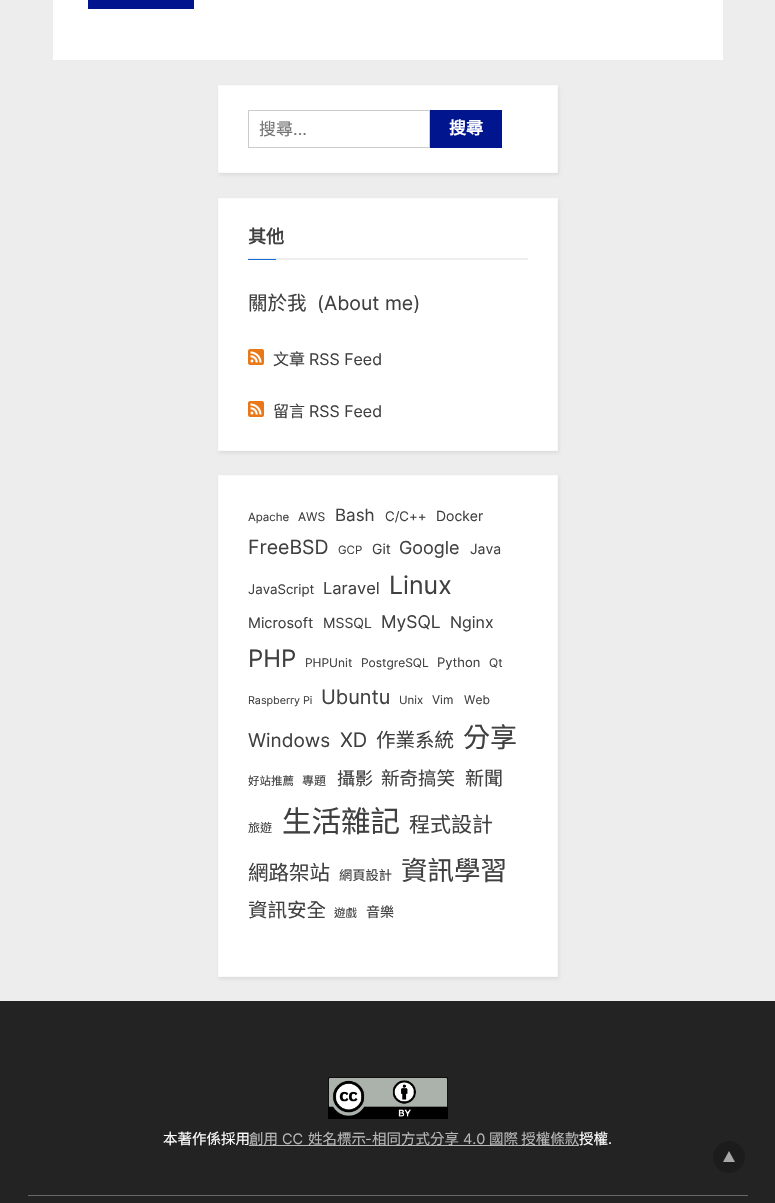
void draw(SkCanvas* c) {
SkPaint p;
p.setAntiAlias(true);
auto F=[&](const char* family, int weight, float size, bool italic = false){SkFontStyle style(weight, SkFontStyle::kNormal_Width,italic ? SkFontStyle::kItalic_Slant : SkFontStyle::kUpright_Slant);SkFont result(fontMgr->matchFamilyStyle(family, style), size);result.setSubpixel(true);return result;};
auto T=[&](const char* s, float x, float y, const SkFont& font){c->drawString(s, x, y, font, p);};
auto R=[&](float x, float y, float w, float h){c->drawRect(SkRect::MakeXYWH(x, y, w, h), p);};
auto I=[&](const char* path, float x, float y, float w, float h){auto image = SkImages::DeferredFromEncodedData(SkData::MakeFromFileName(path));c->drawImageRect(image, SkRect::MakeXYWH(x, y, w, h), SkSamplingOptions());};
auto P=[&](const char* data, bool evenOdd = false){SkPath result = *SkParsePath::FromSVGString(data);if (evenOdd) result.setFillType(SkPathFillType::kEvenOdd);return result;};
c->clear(0xffededed);
p.setColor(0xffffffff);
R(53,0,670,60);
p.setColor(0xff00158e);
R(88,0,106,9);
p.setColor(0x12000000);
p.setMaskFilter(SkMaskFilter::MakeBlur(kNormal_SkBlurStyle, 1.5));
c->drawRect(SkRect::MakeXYWH(219,87,340,88),p);
p.setMaskFilter(nullptr);
p.setColor(0xffffffff);
c->drawRect(SkRect::MakeXYWH(218.5,85.5,339,87),p);
p.setStroke(true);
p.setStrokeWidth(1);
p.setColor(0xfffafafa);
c->drawRect(SkRect::MakeXYWH(218.5,85.5,339,87),p);
p.setColor(0xffcccccc);
c->drawRect(SkRect::MakeXYWH(248.5,110.5,181,37),p);
auto f1 = F("Noto Sans CJK TC",400,17);
p.setStroke(false);
p.setColor(0xff757575);
T("搜尋",259,135,f1);
auto f2 = F("Inter",400,17);
T("...",293,135,f2);
p.setColor(0xff00158e);
R(430,110,72,38);
auto f3 = F("Noto Sans CJK TC",700,17);
p.setColor(0xffffffff);
T("搜尋",449,134,f3);
p.setColor(0x12000000);
p.setMaskFilter(SkMaskFilter::MakeBlur(kNormal_SkBlurStyle, 1.5));
c->drawRect(SkRect::MakeXYWH(219,200,340,253),p);
p.setMaskFilter(nullptr);
p.setColor(0xffffffff);
c->drawRect(SkRect::MakeXYWH(218.5,198.5,339,252),p);
p.setStroke(true);
p.setColor(0xfffafafa);
c->drawRect(SkRect::MakeXYWH(218.5,198.5,339,252),p);
p.setStroke(false);
p.setColor(0xffeeeeee);
R(248,258,280,2);
auto f4 = F("Noto Sans CJK TC",700,18);
p.setColor(0xff404040);
T("其他",248,243,f4);
p.setColor(0xff166dd6);
R(248,259,28,1);
auto f5 = F("Noto Sans CJK TC",400,19.5);
p.setColor(0xff404040);
T("關於我",248,310,f5);
auto f6 = F("Inter",400,19.5);
T("(About me)",317,310,f6);
I("1.png",248,349,16,16);
auto f7 = F("Noto Sans CJK TC",400,16);
T("文章",273,365,f7);
auto f8 = F("Inter",400,16);
T("RSS Feed",309,365,f8);
I("1.png",248,401,16,16);
T("留言",273,417,f7);
T("RSS Feed",309,417,f8);
p.setColor(0x12000000);
p.setMaskFilter(SkMaskFilter::MakeBlur(kNormal_SkBlurStyle, 1.5));
c->drawRect(SkRect::MakeXYWH(219,477,340,502),p);
p.setMaskFilter(nullptr);
p.setColor(0xffffffff);
c->drawRect(SkRect::MakeXYWH(218.5,475.5,339,501),p);
p.setStroke(true);
p.setColor(0xfffafafa);
c->drawRect(SkRect::MakeXYWH(218.5,475.5,339,501),p);
auto f9 = F("Inter",400,11.5);
p.setStroke(false);
p.setColor(0xff404040);
T("Apache",248,521,f9);
auto f10 = F("Inter",400,12);
T("AWS",298,521,f10);
T("Bash",335,521,f2);
auto f11 = F("Inter",400,13.25);
T("C/C++",385,521,f11);
auto f12 = F("Inter",400,14);
T("Docker",436,521,f12);
T("FreeBSD",248,554,f6);
T("GCP",338,554,f9);
T("Git",372,554,f12);
auto f13 = F("Inter",400,18);
T("Google",399,554,f13);
T("Java",470,554,f12);
T("JavaScript",248,594,f11);
auto f14 = F("Inter",400,16.5);
T("Laravel",323,594,f14);
auto f15 = F("Inter",400,25);
T("Linux",389,594,f15);
auto f16 = F("Inter",400,14.5);
T("Microsoft",248,628,f16);
T("MSSQL",323,628,f12);
auto f17 = F("Inter",400,17.5);
T("MySQL",381,628,f17);
T("Nginx",450,628,f8);
auto f18 = F("Inter",400,24);
T("PHP",248,667,f18);
T("PHPUnit",305,667,f10);
T("PostgreSQL",361,667,f10);
auto f19 = F("Inter",400,13);
T("Python",437,667,f19);
T("Qt",489,667,f10);
auto f20 = F("Inter",400,10.75);
T("Raspberry Pi",248,704,f20);
auto f21 = F("Inter",400,20);
T("Ubuntu",321,704,f21);
T("Unix",399,704,f9);
T("Vim",432,704,f10);
T("Web",464,704,f10);
auto f22 = F("Inter",400,19);
T("Windows",248,747,f22);
T("XD",340,747,f21);
T("作業系統",376,747,f5);
auto f23 = F("Noto Sans CJK TC",400,27);
T("分享",463,747,f23);
auto f24 = F("Noto Sans CJK TC",400,11.5);
T("好站推薦",248,785,f24);
auto f25 = F("Noto Sans CJK TC",400,12);
T("專題",302,785,f25);
auto f26 = F("Noto Sans CJK TC",400,18);
T("攝影",337,785,f26);
auto f27 = F("Noto Sans CJK TC",400,18.5);
T("新奇搞笑",381,785,f27);
auto f28 = F("Noto Sans CJK TC",400,19);
T("新聞",465,785,f28);
T("旅遊",248,832,f25);
auto f29 = F("Noto Sans CJK TC",400,29.5);
T("生活雜記",282,832,f29);
auto f30 = F("Noto Sans CJK TC",400,21);
T("程式設計",409,832,f30);
auto f31 = F("Noto Sans CJK TC",400,20.5);
T("網路架站",248,880,f31);
auto f32 = F("Noto Sans CJK TC",400,13.25);
T("網頁設計",339,880,f32);
auto f33 = F("Noto Sans CJK TC",400,26.5);
T("資訊學習",401,880,f33);
T("資訊安全",248,917,f5);
T("遊戲",334,917,f24);
auto f34 = F("Noto Sans CJK TC",400,14);
T("音樂",366,917,f34);
p.setColor(0xff232323);
R(0,1001,775,202);
p.setColor(0xff666666);
R(28,1195,720,1);
I("2.png",328,1077,120,42);
auto f35 = F("Noto Sans CJK TC",400,14.5);
p.setColor(0xffffffff);
T("本著作係採用",163,1144,f35);
p.setColor(0xffb7b7b7);
R(249,1145,330,1);
T("創用",249,1144,f35);
T("CC",282,1144,f16);
T("姓名標示",308,1144,f35);
T("-",365,1144,f16);
T("相同方式分享",372,1144,f35);
T("4.0",463,1144,f16);
T("國際 授權條款",489,1144,f35);
p.setColor(0xffffffff);
T("授權",579,1144,f35);
T(".",608,1144,f16);
p.setColor(0xff1c1c1c);
c->drawCircle(729,1157,16,p);
p.setColor(0xffa7a7a7);
c->drawPath(P("M735 1162h-12l6-11z"),p);
}
